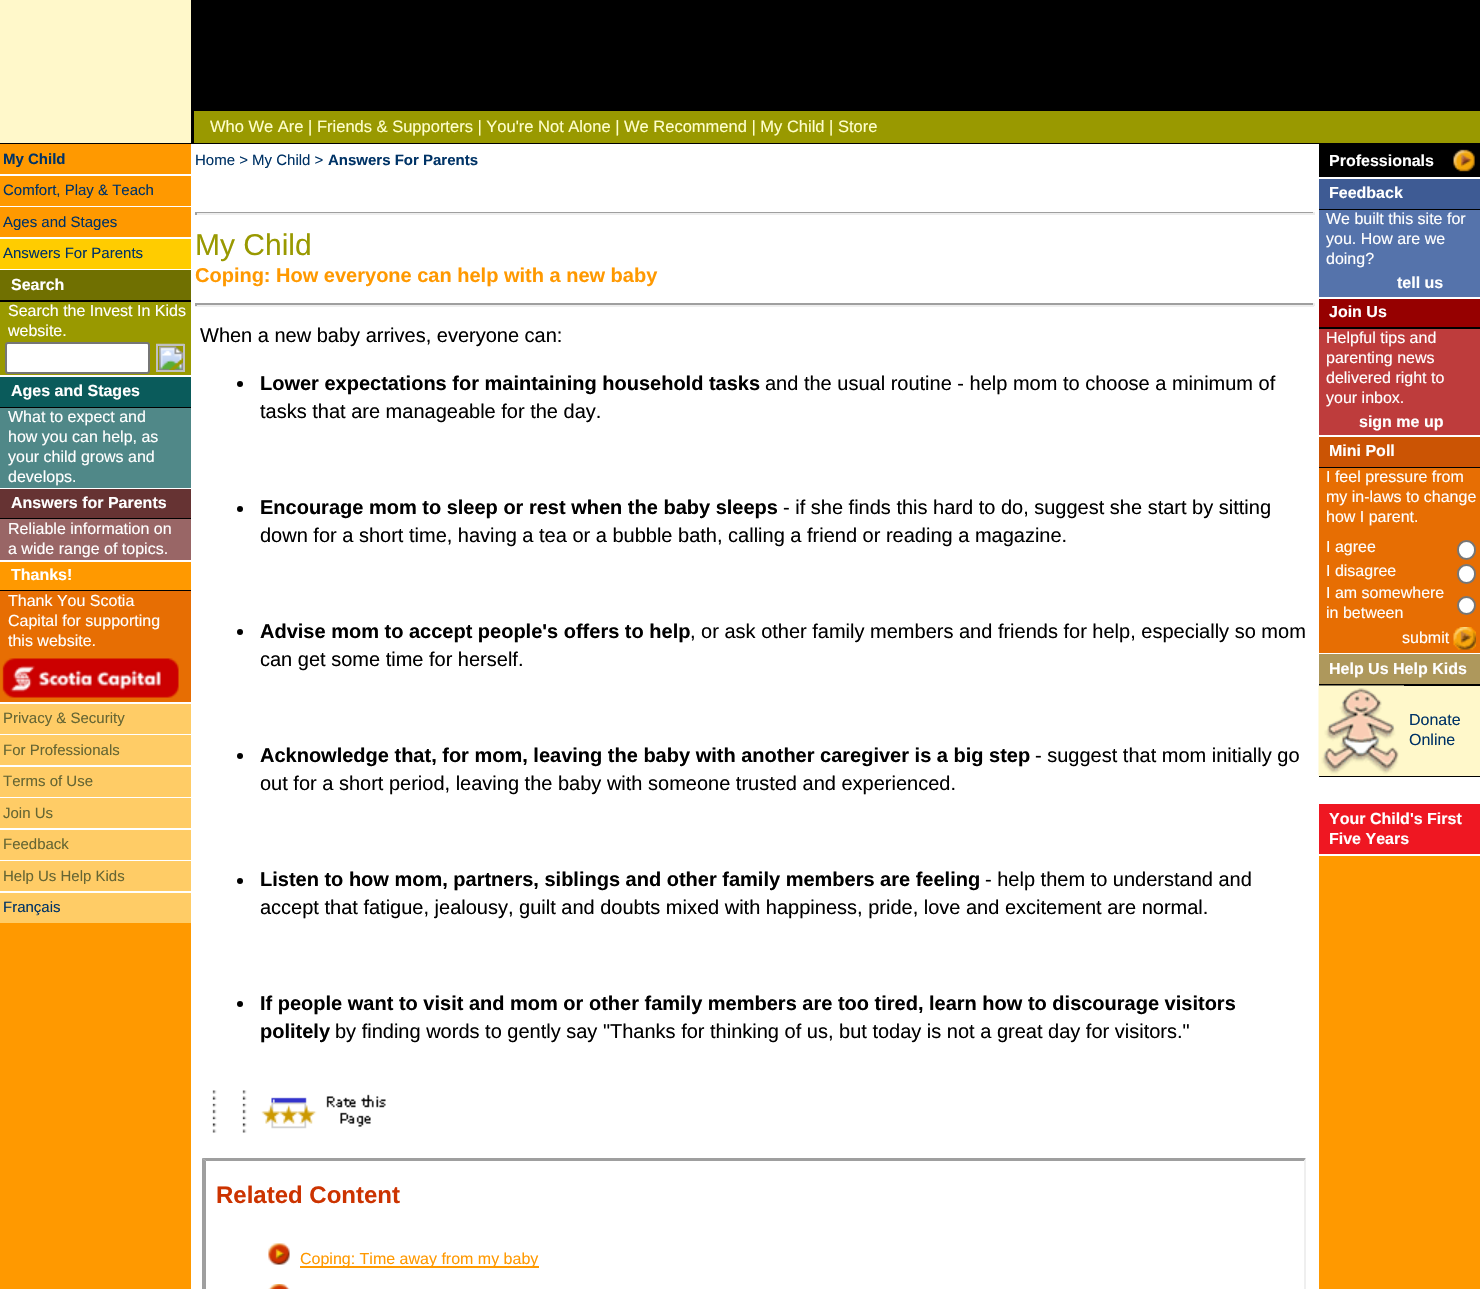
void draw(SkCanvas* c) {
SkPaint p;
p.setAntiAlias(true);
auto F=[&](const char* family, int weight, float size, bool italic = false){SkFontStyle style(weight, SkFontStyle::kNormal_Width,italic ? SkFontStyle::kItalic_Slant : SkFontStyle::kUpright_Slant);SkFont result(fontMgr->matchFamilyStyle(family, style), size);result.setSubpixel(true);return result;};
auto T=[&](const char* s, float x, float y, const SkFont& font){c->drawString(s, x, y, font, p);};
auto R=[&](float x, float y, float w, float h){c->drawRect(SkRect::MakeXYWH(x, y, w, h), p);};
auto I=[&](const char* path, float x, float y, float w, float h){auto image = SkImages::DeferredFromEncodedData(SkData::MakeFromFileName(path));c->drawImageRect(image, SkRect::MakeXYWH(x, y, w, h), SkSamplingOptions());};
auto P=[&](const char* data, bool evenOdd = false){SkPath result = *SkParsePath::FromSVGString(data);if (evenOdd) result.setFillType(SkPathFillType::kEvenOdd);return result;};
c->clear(0xfffff8ca);
p.setColor(0xff000000);
R(191,0,1289,143);
p.setColor(0xff999900);
R(194,111,1286,32);
auto f1 = F("Liberation Sans",400,16.5);
p.setColor(0xffffffcc);
T("Who We Are | Friends & Supporters | You're Not Alone | We Recommend | My Child | Store",210,132,f1);
p.setColor(0xff000000);
R(0,143,1480,1);
p.setColor(0xffff9900);
R(0,144,191,1145);
auto f2 = F("Liberation Sans",700,15);
p.setColor(0xff003366);
T("My Child",3,164,f2);
p.setColor(0xffffffff);
R(0,174,191,2);
auto f3 = F("Liberation Sans",400,15);
p.setColor(0xff003366);
T("Comfort, Play & Teach",3,195,f3);
p.setColor(0xffffffff);
R(0,206,191,1);
p.setColor(0xff003366);
T("Ages and Stages",3,227,f3);
p.setColor(0xffffffff);
R(0,237,191,2);
p.setColor(0xffffcc00);
R(0,239,191,30);
p.setColor(0xff003366);
T("Answers For Parents",3,258,f3);
p.setColor(0xffffffff);
R(0,269,191,1);
p.setColor(0xff707001);
R(0,270,191,30);
auto f4 = F("Liberation Sans",700,16);
p.setColor(0xffffffff);
T("Search",11,290,f4);
p.setColor(0xff000000);
R(0,300,191,2);
p.setColor(0xff999900);
R(0,302,191,73);
auto f5 = F("Liberation Sans",400,16);
p.setColor(0xffffffff);
T("Search the Invest In Kids",8,316,f5);
T("website.",8,336,f5);
c->drawRoundRect(SkRect::MakeXYWH(6,343,143,30),2,2,p);
p.setStroke(true);
p.setStrokeWidth(2);
p.setColor(0xff767676);
c->drawRoundRect(SkRect::MakeXYWH(6,343,143,30),2,2,p);
I("1.png",156,343,29,27);
p.setColor(0xffc0c0c0);
c->drawRect(SkRect::MakeXYWH(157,345,27,26),p);
p.setStroke(false);
p.setColor(0xffffffff);
R(0,375,191,2);
p.setColor(0xff0a5b5b);
R(0,377,191,30);
p.setColor(0xffffffff);
T("Ages and Stages",11,396,f4);
p.setColor(0xff000000);
R(0,407,191,1);
p.setColor(0xff508888);
R(0,408,191,80);
p.setColor(0xffffffff);
T("What to expect and",8,422,f5);
T("how you can help, as",8,442,f5);
T("your child grows and",8,462,f5);
T("develops.",8,482,f5);
R(0,488,191,1);
p.setColor(0xff663333);
R(0,489,191,29);
p.setColor(0xffffffff);
T("Answers for Parents",11,508,f4);
p.setColor(0xff000000);
R(0,518,191,1);
p.setColor(0xff996666);
R(0,519,191,41);
p.setColor(0xffffffff);
T("Reliable information on",8,534,f5);
T("a wide range of topics.",8,554,f5);
R(0,560,191,2);
T("Thanks!",11,580,f4);
p.setColor(0xff000000);
R(0,590,191,1);
p.setColor(0xffe76e03);
R(0,591,191,111);
p.setColor(0xffffffff);
T("Thank You Scotia",8,606,f5);
T("Capital for supporting",8,626,f5);
T("this website.",8,646,f5);
I("2.png",2,658,177,40);
R(0,702,191,2);
p.setColor(0xffffcc66);
R(0,704,191,30);
p.setColor(0xff666633);
T("Privacy & Security",3,723,f3);
p.setColor(0xffffffff);
R(0,734,191,1);
p.setColor(0xffffcc66);
R(0,735,191,30);
p.setColor(0xff666633);
T("For Professionals",3,755,f3);
p.setColor(0xffffffff);
R(0,765,191,2);
p.setColor(0xffffcc66);
R(0,767,191,30);
p.setColor(0xff666633);
T("Terms of Use",3,786,f3);
p.setColor(0xffffffff);
R(0,797,191,1);
p.setColor(0xffffcc66);
R(0,798,191,30);
p.setColor(0xff666633);
T("Join Us",3,818,f3);
p.setColor(0xffffffff);
R(0,828,191,2);
p.setColor(0xffffcc66);
R(0,830,191,30);
p.setColor(0xff666633);
T("Feedback",3,849,f3);
p.setColor(0xffffffff);
R(0,860,191,1);
p.setColor(0xffffcc66);
R(0,861,191,30);
p.setColor(0xff666633);
T("Help Us Help Kids",3,881,f3);
p.setColor(0xffffffff);
R(0,891,191,2);
p.setColor(0xffffcc66);
R(0,893,191,30);
p.setColor(0xff003366);
T("Français",3,912,f3);
p.setColor(0xffffffff);
R(191,144,1128,1145);
p.setColor(0xff003366);
T("Home > My Child >",195,165,f3);
T("Answers For Parents",328,165,f2);
p.setColor(0xff9f9f9f);
R(195,212,1119,1);
p.setColor(0xffeeeeee);
R(1313,212,2,3);
R(195,213,1119,2);
p.setColor(0xff9f9f9f);
R(195,212,2,3);
auto f6 = F("Liberation Sans",400,30);
p.setColor(0xff999900);
T("My Child",195,255,f6);
auto f7 = F("Liberation Sans",700,20);
p.setColor(0xffff9900);
T("Coping: How everyone can help with a new baby",195,282,f7);
p.setColor(0xff9f9f9f);
R(195,303,1119,2);
p.setColor(0xffeeeeee);
R(1313,303,2,3);
R(195,305,1119,2);
p.setColor(0xff9f9f9f);
R(195,303,2,3);
auto f8 = F("Liberation Sans",400,20);
p.setColor(0xff000000);
T("When a new baby arrives, everyone can:",200,342,f8);
c->drawCircle(240,384,3,p);
T("Lower expectations for maintaining household tasks",260,390,f7);
T("and the usual routine - help mom to choose a minimum of",765,390,f8);
T("tasks that are manageable for the day.",260,418,f8);
c->drawCircle(240,509,3,p);
T("Encourage mom to sleep or rest when the baby sleeps",260,514,f7);
T("- if she finds this hard to do, suggest she start by sitting",783,514,f8);
T("down for a short time, having a tea or a bubble bath, calling a friend or reading a magazine.",260,542,f8);
c->drawCircle(240,632,3,p);
T("Advise mom to accept people's offers to help",260,638,f7);
T(", or ask other family members and friends for help, especially so mom",690,638,f8);
T("can get some time for herself.",260,666,f8);
c->drawCircle(240,756,3,p);
T("Acknowledge that, for mom, leaving the baby with another caregiver is a big step",260,762,f7);
T("- suggest that mom initially go",1035,762,f8);
T("out for a short period, leaving the baby with someone trusted and experienced.",260,790,f8);
c->drawCircle(240,881,3,p);
T("Listen to how mom, partners, siblings and other family members are feeling",260,886,f7);
T("- help them to understand and",985,886,f8);
T("accept that fatigue, jealousy, guilt and doubts mixed with happiness, pride, love and excitement are normal.",260,914,f8);
c->drawCircle(240,1004,3,p);
T("If people want to visit and mom or other family members are too tired, learn how to discourage visitors",260,1010,f7);
T("politely",260,1038,f7);
T("by finding words to gently say \"Thanks for thinking of us, but today is not a great day for visitors.\"",335,1038,f8);
I("3.png",212,1090,5,43);
I("3.png",242,1090,5,43);
I("4.png",261,1094,125,35);
p.setColor(0xff9f9f9f);
c->drawPath(P("M202 1158h1104l-2 3h-1098z"),p);
p.setColor(0xffefefef);
c->drawPath(P("M1306 1158v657l-2-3v-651z"),p);
p.setColor(0xff9f9f9f);
c->drawPath(P("M202 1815v-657l4 3v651z"),p);
auto f9 = F("Liberation Sans",700,24);
p.setColor(0xffcc3300);
T("Related Content",216,1203,f9);
I("5.png",268,1243,22,22);
p.setColor(0xffff9900);
R(300,1266,239,2);
T("Coping: Time away from my baby",300,1264,f5);
I("6.png",268,1284,22,5);
R(1319,856,161,433);
p.setColor(0xff000000);
R(1319,144,161,33);
p.setColor(0xffffffff);
T("Professionals",1329,166,f4);
I("7.png",1453,149,22,23);
R(1319,177,161,2);
p.setColor(0xff3e5b94);
R(1319,179,161,30);
p.setColor(0xffffffff);
T("Feedback",1329,198,f4);
p.setColor(0xff000000);
R(1319,209,161,1);
p.setColor(0xff5573ab);
R(1319,210,161,60);
p.setColor(0xffffffff);
T("We built this site for",1326,224,f5);
T("you. How are we",1326,244,f5);
T("doing?",1326,264,f5);
p.setColor(0xff5573ab);
R(1319,270,161,27);
p.setColor(0xffffffff);
T("tell us",1397,288,f4);
R(1319,297,161,2);
p.setColor(0xff960000);
R(1319,299,161,28);
p.setColor(0xffffffff);
T("Join Us",1329,317,f4);
p.setColor(0xff000000);
R(1319,327,161,2);
p.setColor(0xffbe3c3c);
R(1319,329,161,79);
p.setColor(0xffffffff);
T("Helpful tips and",1326,343,f5);
T("parenting news",1326,363,f5);
T("delivered right to",1326,383,f5);
T("your inbox.",1326,403,f5);
p.setColor(0xffbe3c3c);
R(1319,408,161,27);
p.setColor(0xffffffff);
T("sign me up",1359,427,f4);
R(1319,435,161,2);
p.setColor(0xffcb5404);
R(1319,437,161,30);
p.setColor(0xffffffff);
T("Mini Poll",1329,456,f4);
p.setColor(0xff000000);
R(1319,467,161,1);
p.setColor(0xffe76e03);
R(1319,468,161,185);
p.setColor(0xffffffff);
T("I feel pressure from",1326,482,f5);
T("my in-laws to change",1326,502,f5);
T("how I parent.",1326,522,f5);
T("I agree",1326,552,f5);
c->drawRoundRect(SkRect::MakeXYWH(1458,541,17,18),8.5,8.5,p);
p.setStroke(true);
p.setColor(0xff767676);
c->drawRoundRect(SkRect::MakeXYWH(1458,541,17,18),8.5,8.5,p);
p.setStroke(false);
p.setColor(0xffffffff);
T("I disagree",1326,576,f5);
c->drawRoundRect(SkRect::MakeXYWH(1458,565,17,18),8.5,8.5,p);
p.setStroke(true);
p.setColor(0xff767676);
c->drawRoundRect(SkRect::MakeXYWH(1458,565,17,18),8.5,8.5,p);
p.setStroke(false);
p.setColor(0xffffffff);
T("I am somewhere",1326,598,f5);
T("in between",1326,618,f5);
c->drawCircle(1466.5,605.5,8.5,p);
p.setStroke(true);
p.setColor(0xff767676);
c->drawCircle(1466.5,605.5,8.5,p);
p.setStroke(false);
p.setColor(0xffffffff);
T("submit",1402,643,f5);
I("8.png",1453,627,23,23);
R(1319,653,161,1);
p.setColor(0xffae985c);
R(1319,654,161,30);
p.setColor(0xffffffff);
T("Help Us Help Kids",1329,674,f4);
p.setColor(0xff000000);
R(1319,684,161,2);
I("9.png",1318,685,86,91);
p.setColor(0xff003366);
T("Donate",1409,725,f5);
T("Online",1409,745,f5);
p.setColor(0xff000000);
R(1319,776,161,1);
p.setColor(0xffffffff);
R(1319,777,161,27);
p.setColor(0xffef1722);
R(1319,804,161,50);
p.setColor(0xffffffff);
T("Your Child's First",1329,824,f4);
T("Five Years",1329,844,f4);
R(1319,854,161,2);
}
